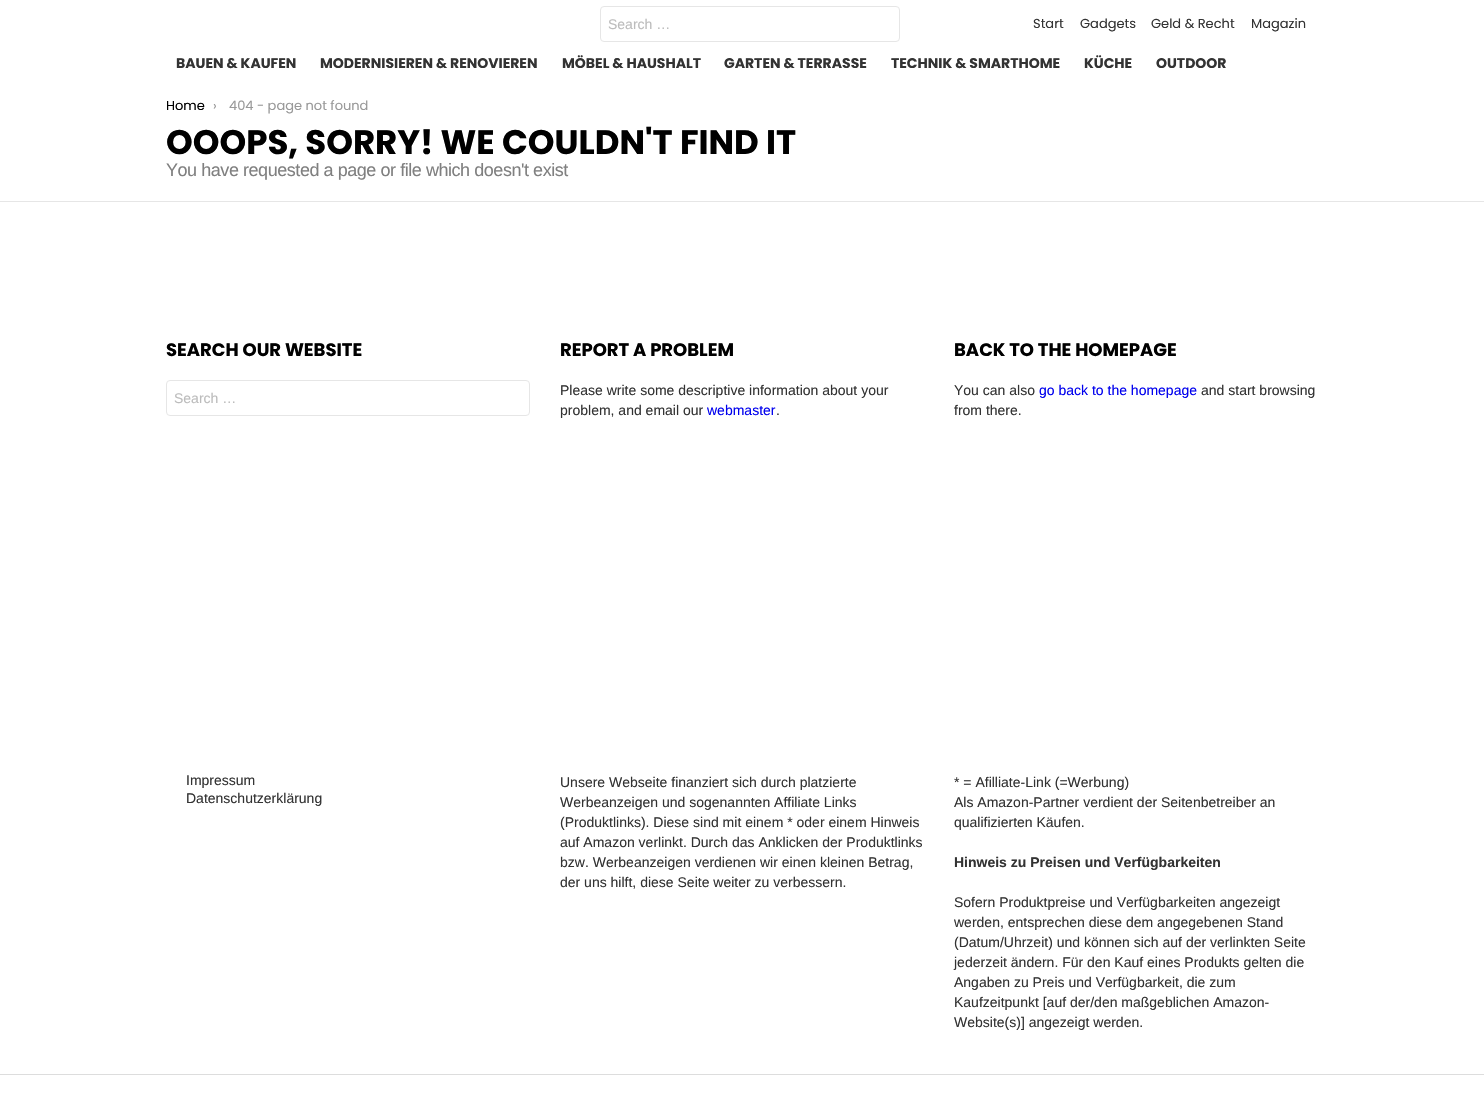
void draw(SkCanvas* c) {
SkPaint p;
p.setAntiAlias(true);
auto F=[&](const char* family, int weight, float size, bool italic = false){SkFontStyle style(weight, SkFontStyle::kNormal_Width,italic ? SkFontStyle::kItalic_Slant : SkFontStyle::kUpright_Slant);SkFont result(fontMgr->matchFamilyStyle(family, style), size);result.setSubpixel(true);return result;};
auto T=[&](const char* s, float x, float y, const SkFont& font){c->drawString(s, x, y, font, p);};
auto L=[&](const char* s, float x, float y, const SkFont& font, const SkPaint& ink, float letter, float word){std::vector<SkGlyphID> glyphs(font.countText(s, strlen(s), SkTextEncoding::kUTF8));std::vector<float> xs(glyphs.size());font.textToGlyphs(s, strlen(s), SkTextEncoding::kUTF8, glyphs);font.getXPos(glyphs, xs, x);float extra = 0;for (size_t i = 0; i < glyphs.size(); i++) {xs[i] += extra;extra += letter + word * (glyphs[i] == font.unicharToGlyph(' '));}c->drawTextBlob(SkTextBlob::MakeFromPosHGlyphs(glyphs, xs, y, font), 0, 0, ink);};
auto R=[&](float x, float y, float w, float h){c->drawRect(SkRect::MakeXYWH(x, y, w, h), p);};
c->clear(0xffffffff);
p.setStroke(true);
p.setStrokeWidth(1);
p.setColor(0xffe6e6e6);
c->drawRoundRect(SkRect::MakeXYWH(600.5,6.5,299,35),3.5,3.5,p);
auto f1 = F("Liberation Sans",400,14);
p.setStroke(false);
p.setColor(0xffbcbcbc);
T("Search …",608,29,f1);
auto f2 = F("Poppins",400,13);
p.setColor(0xff333333);
T("Start",1033,28,f2);
T("Gadgets",1080,28,f2);
T("Geld & Recht",1151,28,f2);
T("Magazin",1251,28,f2);
auto f3 = F("Poppins",700,14);
T("BAUEN & KAUFEN",176,68,f3);
T("MODERNISIEREN & RENOVIEREN",320,68,f3);
T("MÖBEL & HAUSHALT",562,68,f3);
T("GARTEN & TERRASSE",724,68,f3);
T("TECHNIK & SMARTHOME",891,68,f3);
T("KÜCHE",1084,68,f3);
T("OUTDOOR",1156,68,f3);
p.setColor(0xff000000);
T("Home",166,110,f2);
p.setColor(0xff999999);
T("›",213,110,f2);
T("404 - page not found",229,110,f2);
auto f4 = F("Poppins",700,34);
p.setColor(0xff000000);
T("OOOPS, SORRY! WE COULDN'T FIND IT",166,154,f4);
auto f5 = F("Liberation Sans",400,18);
p.setColor(0xff808080);
L("You have requested a page or file which doesn't exist",166,176,f5,p,-.45,0);
p.setColor(0xffe6e6e6);
R(0,201,1484,1);
auto f6 = F("Poppins",700,18);
p.setColor(0xff000000);
T("SEARCH OUR WEBSITE",166,356,f6);
p.setStroke(true);
p.setColor(0xffe6e6e6);
c->drawRoundRect(SkRect::MakeXYWH(166.5,380.5,363,35),3.5,3.5,p);
p.setStroke(false);
p.setColor(0xffbcbcbc);
T("Search …",174,403,f1);
p.setColor(0xff000000);
T("REPORT A PROBLEM",560,356,f6);
p.setColor(0xff333333);
T("Please write some descriptive information about your",560,395,f1);
T("problem, and email our",560,415,f1);
p.setColor(0xff0000ee);
T("webmaster",707,415,f1);
p.setColor(0xff333333);
T(".",776,415,f1);
p.setColor(0xff000000);
T("BACK TO THE HOMEPAGE",954,356,f6);
p.setColor(0xff333333);
T("You can also",954,395,f1);
p.setColor(0xff0000ee);
T("go back to the homepage",1039,395,f1);
p.setColor(0xff333333);
T("and start browsing",1201,395,f1);
T("from there.",954,415,f1);
T("Impressum",186,785,f1);
T("Datenschutzerklärung",186,803,f1);
T("Unsere Webseite finanziert sich durch platzierte",560,787,f1);
T("Werbeanzeigen und sogenannten Affiliate Links",560,807,f1);
T("(Produktlinks). Diese sind mit einem * oder einem Hinweis",560,827,f1);
T("auf Amazon verlinkt. Durch das Anklicken der Produktlinks",560,847,f1);
T("bzw. Werbeanzeigen verdienen wir einen kleinen Betrag,",560,867,f1);
T("der uns hilft, diese Seite weiter zu verbessern.",560,887,f1);
T("* = Afilliate-Link (=Werbung)",954,787,f1);
T("Als Amazon-Partner verdient der Seitenbetreiber an",954,807,f1);
T("qualifizierten Käufen.",954,827,f1);
auto f7 = F("Liberation Sans",700,14);
T("Hinweis zu Preisen und Verfügbarkeiten",954,867,f7);
T("Sofern Produktpreise und Verfügbarkeiten angezeigt",954,907,f1);
T("werden, entsprechen diese dem angegebenen Stand",954,927,f1);
T("(Datum/Uhrzeit) und können sich auf der verlinkten Seite",954,947,f1);
T("jederzeit ändern. Für den Kauf eines Produkts gelten die",954,967,f1);
T("Angaben zu Preis und Verfügbarkeit, die zum",954,987,f1);
T("Kaufzeitpunkt [auf der/den maßgeblichen Amazon-",954,1007,f1);
T("Website(s)] angezeigt werden.",954,1027,f1);
p.setColor(0xffdddddd);
R(0,1074,1484,1);
}
